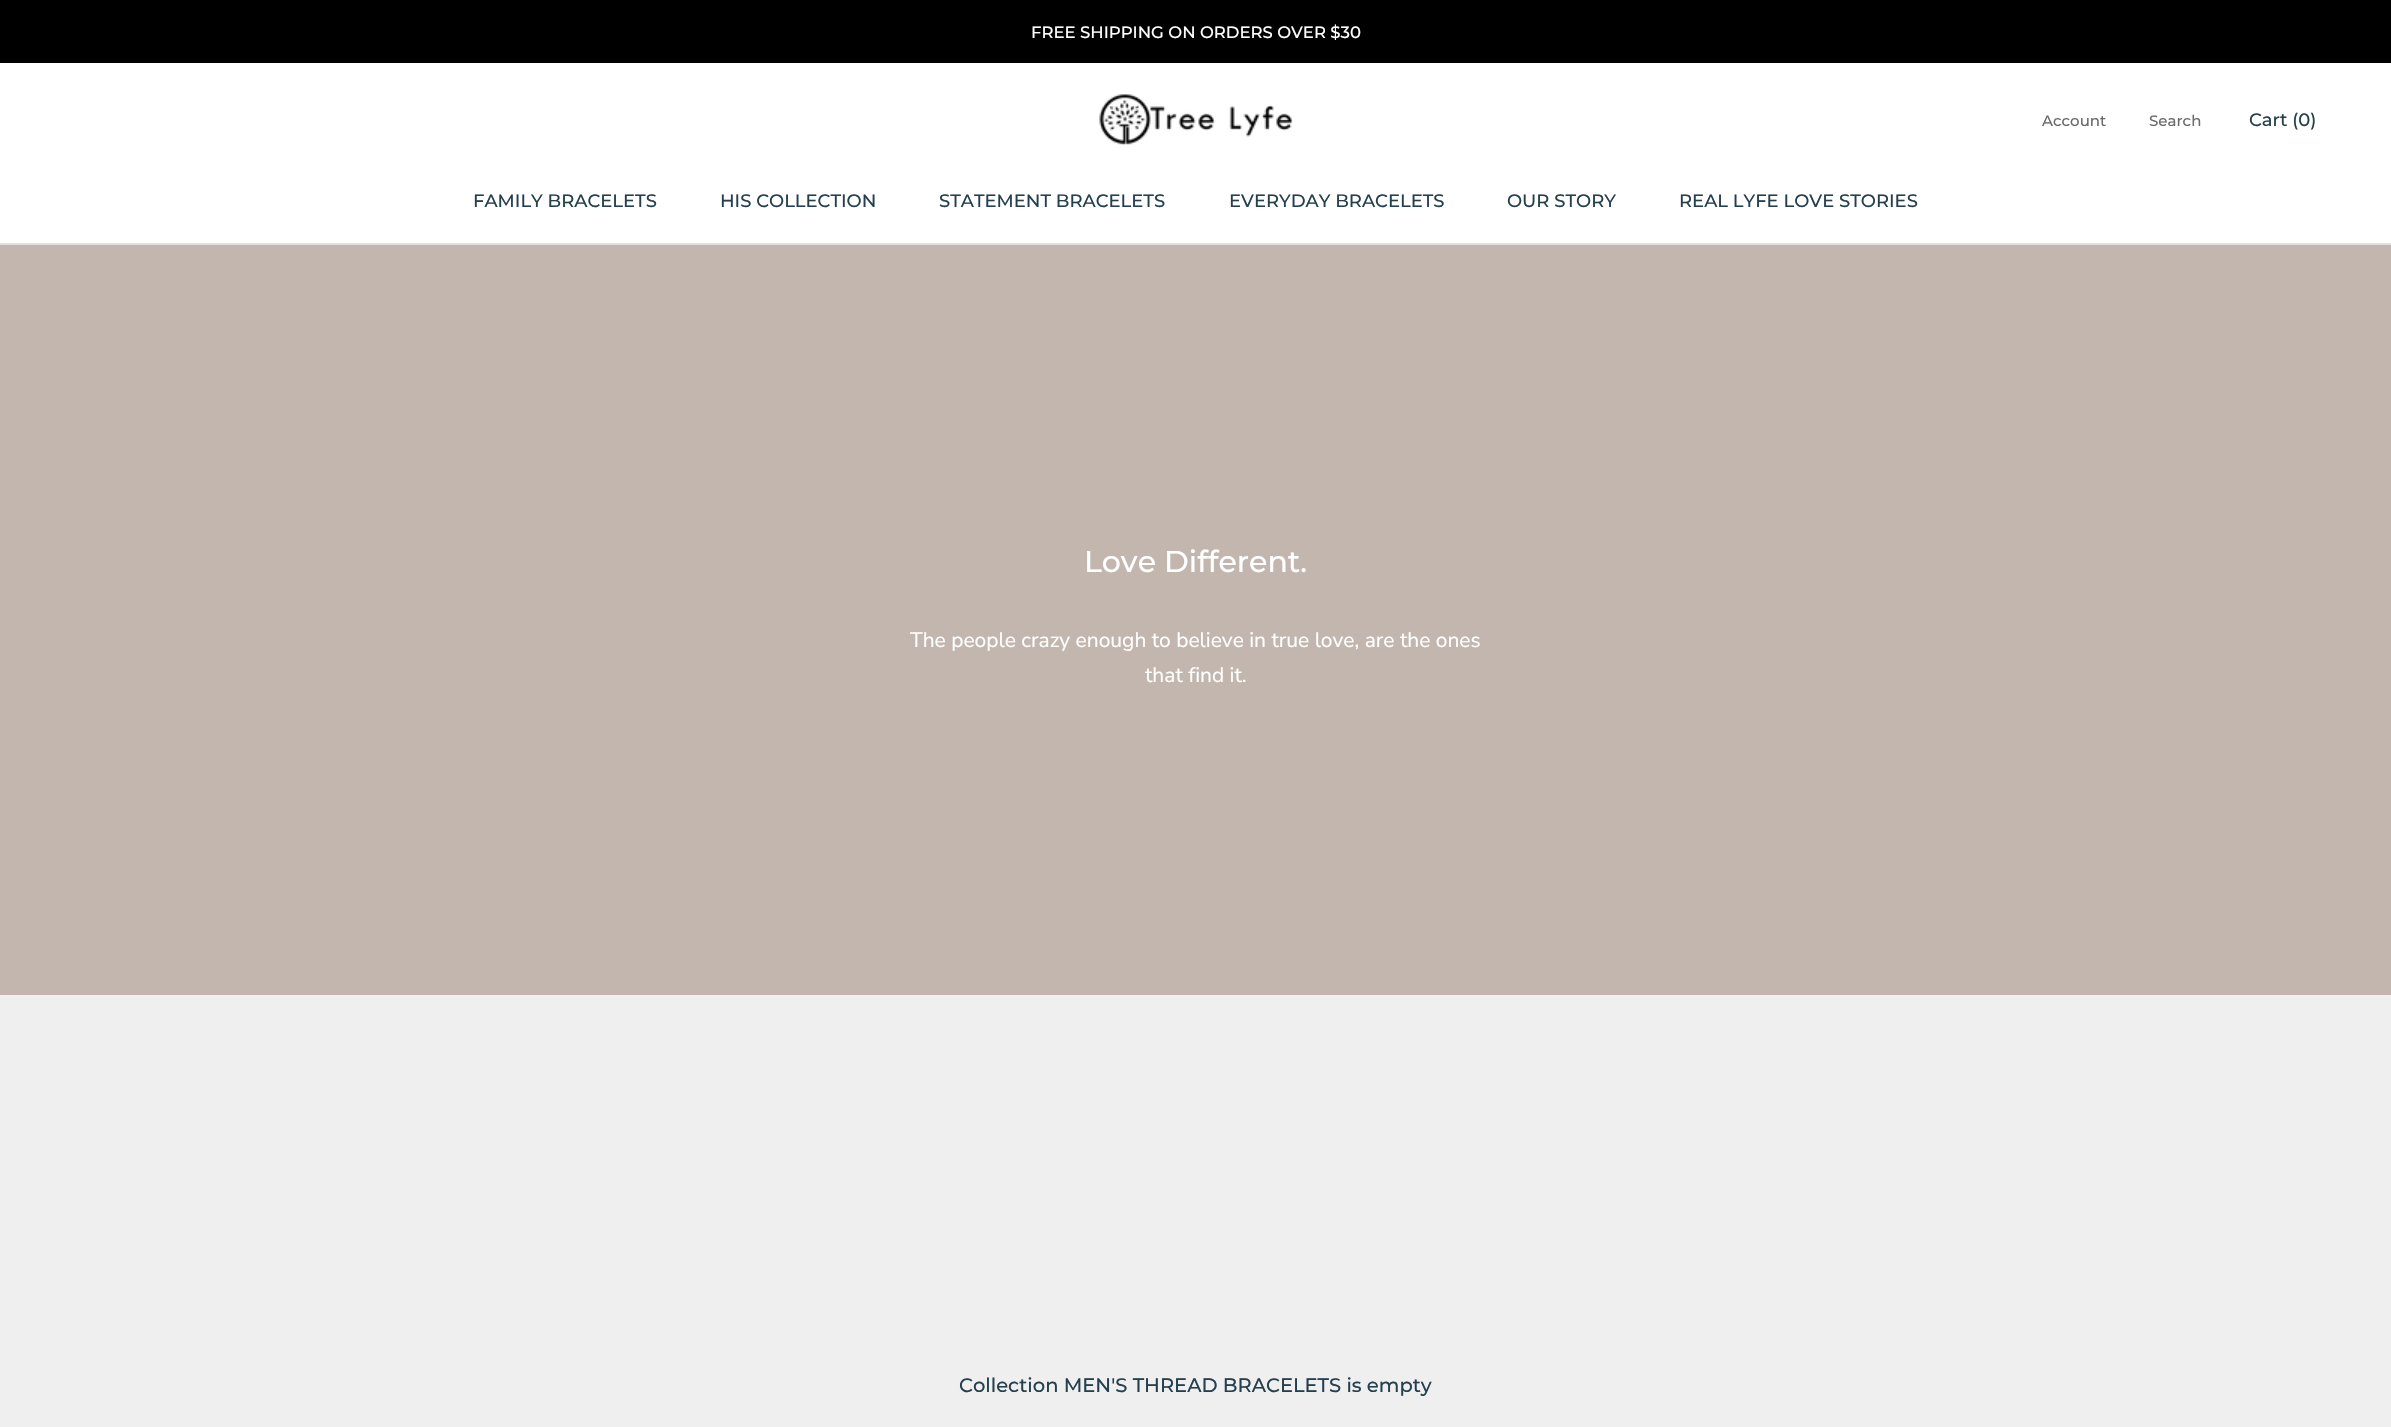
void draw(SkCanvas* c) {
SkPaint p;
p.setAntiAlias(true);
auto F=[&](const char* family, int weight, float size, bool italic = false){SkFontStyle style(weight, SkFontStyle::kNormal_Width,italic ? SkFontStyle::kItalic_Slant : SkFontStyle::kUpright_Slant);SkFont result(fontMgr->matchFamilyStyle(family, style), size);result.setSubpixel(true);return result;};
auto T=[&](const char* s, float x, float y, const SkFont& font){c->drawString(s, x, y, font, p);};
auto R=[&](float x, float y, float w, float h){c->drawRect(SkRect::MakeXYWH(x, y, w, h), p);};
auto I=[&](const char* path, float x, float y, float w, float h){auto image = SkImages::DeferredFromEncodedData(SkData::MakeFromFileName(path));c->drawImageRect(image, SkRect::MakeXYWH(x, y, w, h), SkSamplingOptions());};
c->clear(0xffefefef);
p.setColor(0xff000000);
R(0,0,2391,63);
auto f1 = F("Montserrat",500,16.5);
p.setColor(0xffffffff);
T("FREE SHIPPING ON ORDERS OVER $30",1031,38,f1);
R(0,63,2391,180);
p.setColor(0xffdee2e4);
R(0,243,2391,2);
I("1.png",1099,94,194,51);
auto f2 = F("Montserrat",500,15);
p.setColor(0xff6a6a6a);
T("Account",2042,126,f2);
T("Search",2149,126,f2);
auto f3 = F("Montserrat",500,18);
p.setColor(0xff24404e);
T("Cart (0)",2249,126,f3);
T("FAMILY BRACELETS",473,207,f3);
T("HIS COLLECTION",720,207,f3);
T("STATEMENT BRACELETS",939,207,f3);
T("EVERYDAY BRACELETS",1229,207,f3);
T("OUR STORY",1507,207,f3);
T("REAL LYFE LOVE STORIES",1679,207,f3);
p.setColor(0xffc3b6ae);
R(0,245,2391,750);
auto f4 = F("Montserrat",500,30);
p.setColor(0xffffffff);
T("Love Different.",1084,572,f4);
auto f5 = F("Nunito Sans",400,21);
T("The people crazy enough to believe in true love, are the ones",910,647,f5);
T("that find it.",1145,682,f5);
auto f6 = F("Montserrat",500,19.5);
p.setColor(0xff24404e);
T("Collection MEN'S THREAD BRACELETS is empty",959,1392,f6);
}
